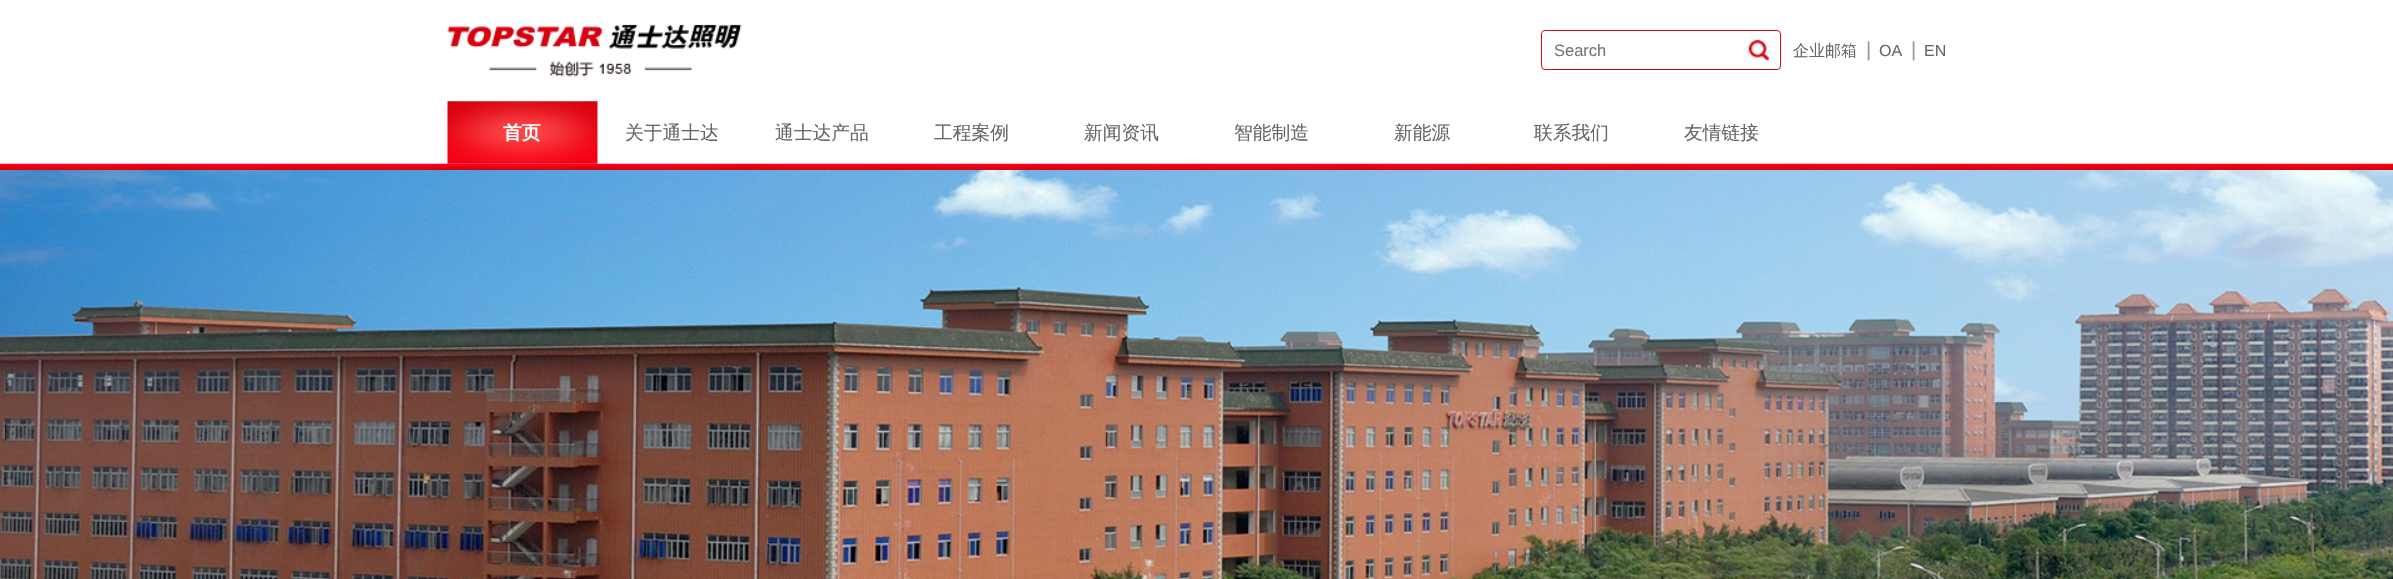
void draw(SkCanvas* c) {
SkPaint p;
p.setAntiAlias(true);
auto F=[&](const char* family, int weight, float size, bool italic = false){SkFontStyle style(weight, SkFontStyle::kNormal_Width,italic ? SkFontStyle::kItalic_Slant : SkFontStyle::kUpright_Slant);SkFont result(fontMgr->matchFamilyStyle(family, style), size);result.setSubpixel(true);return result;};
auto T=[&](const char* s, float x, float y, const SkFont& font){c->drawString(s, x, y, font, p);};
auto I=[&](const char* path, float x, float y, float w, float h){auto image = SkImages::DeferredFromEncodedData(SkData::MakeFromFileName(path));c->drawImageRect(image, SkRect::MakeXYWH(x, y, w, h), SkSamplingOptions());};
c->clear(0xffffffff);
I("1.png",447,24,295,53);
p.setStroke(true);
p.setStrokeWidth(1);
p.setColor(0xffd80c18);
c->drawRoundRect(SkRect::MakeXYWH(1541.5,30.5,239,39),3.5,3.5,p);
auto f1 = F("Liberation Sans",400,16.5);
p.setStroke(false);
p.setColor(0xff757575);
T("Search",1554,56,f1);
I("2.png",1743,34,38,27);
auto f2 = F("WenQuanYi Zen Hei",500,16);
p.setColor(0xff666666);
T("企业邮箱",1793,56,f2);
auto f3 = F("Liberation Sans",400,20);
p.setColor(0xff999999);
T("|",1866,56,f3);
auto f4 = F("Liberation Sans",400,16);
p.setColor(0xff666666);
T("OA",1879,56,f4);
p.setColor(0xff999999);
T("|",1911,56,f3);
p.setColor(0xff666666);
T("EN",1924,56,f4);
I("4.png",0,163,2393,7);
I("3.png",447,101,151,63);
auto f5 = F("WenQuanYi Zen Hei",700,18.75);
p.setColor(0xffffffff);
T("首页",503,139,f5);
auto f6 = F("WenQuanYi Zen Hei",500,18.75);
p.setColor(0xff666666);
T("关于通士达",625,139,f6);
T("通士达产品",775,139,f6);
T("工程案例",934,139,f6);
T("新闻资讯",1084,139,f6);
T("智能制造",1234,139,f6);
T("新能源",1394,139,f6);
T("联系我们",1534,139,f6);
T("友情链接",1684,139,f6);
I("5.png",0,170,2393,409);
}
